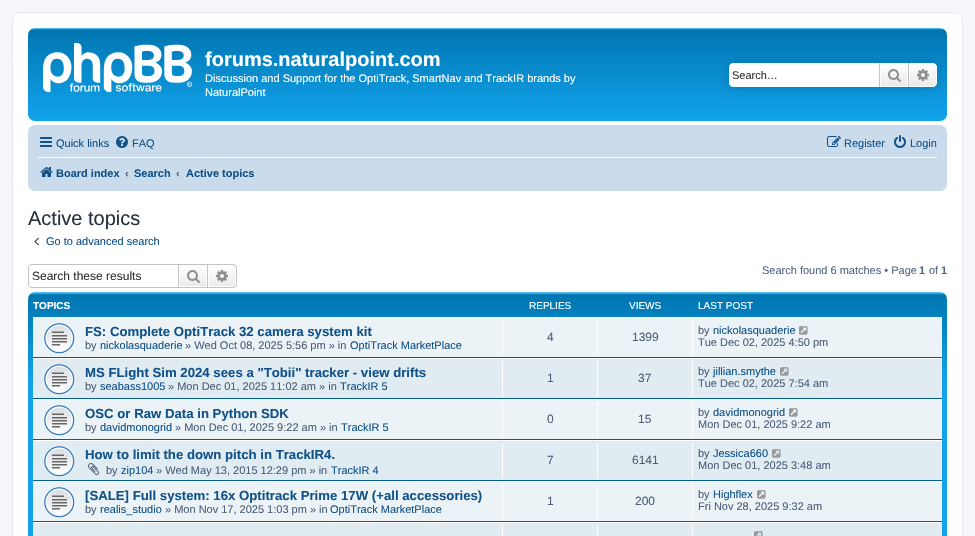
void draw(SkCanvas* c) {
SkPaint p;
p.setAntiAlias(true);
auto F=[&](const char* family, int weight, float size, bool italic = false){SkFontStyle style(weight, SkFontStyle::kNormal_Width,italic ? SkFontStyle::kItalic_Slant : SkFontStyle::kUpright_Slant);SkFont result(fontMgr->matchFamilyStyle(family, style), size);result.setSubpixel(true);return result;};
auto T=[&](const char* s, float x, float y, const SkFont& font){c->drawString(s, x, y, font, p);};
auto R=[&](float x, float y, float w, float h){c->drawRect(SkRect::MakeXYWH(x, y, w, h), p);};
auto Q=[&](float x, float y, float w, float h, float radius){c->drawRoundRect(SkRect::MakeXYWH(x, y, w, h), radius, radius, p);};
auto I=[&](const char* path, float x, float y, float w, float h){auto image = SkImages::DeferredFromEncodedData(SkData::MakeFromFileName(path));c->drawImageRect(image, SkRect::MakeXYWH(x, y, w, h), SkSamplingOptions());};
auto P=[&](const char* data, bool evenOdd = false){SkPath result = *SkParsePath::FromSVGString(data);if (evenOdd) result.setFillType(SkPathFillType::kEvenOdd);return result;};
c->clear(0xfff5f7fa);
p.setColor(0xffffffff);
c->drawRoundRect(SkRect::MakeXYWH(12.5,12.5,950,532),7.5,7.5,p);
p.setStroke(true);
p.setStrokeWidth(1);
p.setColor(0xffe6e9ed);
c->drawRoundRect(SkRect::MakeXYWH(12.5,12.5,950,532),7.5,7.5,p);
p.setStroke(false);
{
const SkColor colors[] = {0xff6aceff,0xff0076b1,0xff12a3eb,0xff12a3eb};
const float stops[] = {0,.02,.99,1};
const SkPoint ends[] = {{488,28}, {488,121}};
p.setShader(SkGradientShader::MakeLinear(ends, colors, stops, 4, SkTileMode::kClamp));
p.setAlpha(255);
}
Q(28,28,919,93,7);
I("1.png",43,43,149,49);
auto f1 = F("Liberation Sans",700,20);
p.setShader(nullptr);
p.setColor(0xffffffff);
T("forums.naturalpoint.com",205,66,f1);
auto f2 = F("Liberation Sans",400,11);
T("Discussion and Support for the OptiTrack, SmartNav and TrackIR brands by",205,82,f2);
T("NaturalPoint",205,96,f2);
p.setColor(0xff0075b0);
p.setMaskFilter(SkMaskFilter::MakeBlur(kNormal_SkBlurStyle, 5));
c->drawRoundRect(SkRect::MakeXYWH(729,63,208,24),4,4,p);
p.setMaskFilter(nullptr);
p.setColor(0xffffffff);
c->drawPath(P("M733 63h146v24h-146c-2 0-4-2-4-4v-16c0-2 2-4 4-4z"),p);
p.setColor(0xff333333);
T("Search…",732,79,f2);
{
const SkColor colors[] = {0xffffffff,0xffe9e9e9};
const float stops[] = {0,1};
const SkPoint ends[] = {{894,63}, {894,87}};
p.setShader(SkGradientShader::MakeLinear(ends, colors, stops, 2, SkTileMode::kClamp));
p.setAlpha(255);
}
R(881,64,26,22);
p.setStroke(true);
p.setShader(nullptr);
p.setColor(0xffffffff);
c->drawRect(SkRect::MakeXYWH(880.5,63.5,27,23),p);
p.setStroke(false);
p.setColor(0xffc7c3bf);
R(908,63,1,24);
R(879,63,1,24);
I("2.png",888,69,13,13);
{
const SkColor colors[] = {0xffffffff,0xffe9e9e9};
const float stops[] = {0,1};
const SkPoint ends[] = {{923,63}, {923,87}};
p.setShader(SkGradientShader::MakeLinear(ends, colors, stops, 2, SkTileMode::kClamp));
p.setAlpha(255);
}
c->drawPath(P("M909.5 63.5h23.5c2 0 3.5 1.5 3.5 3.5v16c0 2-1.5 3.5-3.5 3.5h-23.5z"),p);
p.setStroke(true);
p.setShader(nullptr);
p.setColor(0xffffffff);
c->drawPath(P("M909.5 63.5h23.5c2 0 3.5 1.5 3.5 3.5v16c0 2-1.5 3.5-3.5 3.5h-23.5z"),p);
I("3.png",917,69,12,12);
p.setStroke(false);
p.setColor(0xffcadceb);
Q(28,125,919,66,7);
I("4.png",40,137,12,10);
p.setColor(0xff105289);
T("Quick links",56,147,f2);
I("5.png",116,136,12,12);
T("FAQ",132,147,f2);
I("6.png",827,136,14,11);
T("Register",844,147,f2);
I("7.png",894,135,12,13);
T("Login",910,147,f2);
p.setColor(0xffffffff);
R(38,157,899,1);
I("8.png",40,167,13,10);
auto f3 = F("Liberation Sans",700,11);
p.setColor(0xff105289);
T("Board index",56,177,f3);
p.setColor(0xff536482);
T("‹",125,177,f3);
p.setColor(0xff105289);
T("Search",134,177,f3);
p.setColor(0xff536482);
T("‹",176,177,f3);
p.setColor(0xff105289);
T("Active topics",186,177,f3);
auto f4 = F("Liberation Sans",400,20);
p.setColor(0xff28313f);
T("Active topics",28,225,f4);
I("9.png",34,237,5,9);
p.setColor(0xff105289);
T("Go to advanced search",46,245,f2);
p.setColor(0xffc7c3bf);
c->drawPath(P("M32 264h146v24h-146c-2 0-4-2-4-4v-16c0-2 2-4 4-4zm0 1h146v22h-146c-2 0-3-1-3-3v-16c0-2 1-3 3-3z",true),p);
auto f5 = F("Liberation Sans",400,12);
p.setColor(0xff333333);
T("Search these results",32,280,f5);
{
const SkColor colors[] = {0xffffffff,0xffe9e9e9};
const float stops[] = {0,1};
const SkPoint ends[] = {{193,265}, {193,287}};
p.setShader(SkGradientShader::MakeLinear(ends, colors, stops, 2, SkTileMode::kClamp));
p.setAlpha(255);
}
R(180,268,26,18);
p.setStroke(true);
p.setShader(nullptr);
p.setColor(0xffc7c3bf);
c->drawRect(SkRect::MakeXYWH(178.5,264.5,29,23),p);
I("10.png",187,270,13,13);
p.setStroke(false);
{
const SkColor colors[] = {0xffffffff,0xffe9e9e9};
const float stops[] = {0,1};
const SkPoint ends[] = {{222,265}, {222,287}};
p.setShader(SkGradientShader::MakeLinear(ends, colors, stops, 2, SkTileMode::kClamp));
p.setAlpha(255);
}
c->drawPath(P("M208.5 265.5h24.5c1.5 0 2.5 1 2.5 2.5v16c0 1.5-1 2.5-2.5 2.5h-24.5z"),p);
p.setStroke(true);
p.setShader(nullptr);
p.setColor(0xffffffff);
c->drawPath(P("M208.5 265.5h24.5c1.5 0 2.5 1 2.5 2.5v16c0 1.5-1 2.5-2.5 2.5h-24.5z"),p);
p.setStroke(false);
p.setColor(0xffc7c3bf);
c->drawPath(P("M208 264h25c2 0 4 2 4 4v16c0 2-2 4-4 4h-25zm0 1h25c1.5 0 3 1.5 3 3v16c0 1.5-1.5 3-3 3h-25z",true),p);
I("11.png",216,270,12,12);
p.setColor(0xff536482);
T("Search found 6 matches • Page",762,274,f2);
T("1",919,274,f3);
T("of",929,274,f2);
T("1",941,274,f3);
{
const SkColor colors[] = {0xff6aceff,0xff0076b1,0xff12a3eb,0xff12a3eb};
const float stops[] = {0,.01,.31,1};
const SkPoint ends[] = {{488,292}, {488,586}};
p.setShader(SkGradientShader::MakeLinear(ends, colors, stops, 4, SkTileMode::kClamp));
p.setAlpha(255);
}
Q(28,292,919,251,7);
auto f6 = F("Liberation Sans",700,10);
p.setShader(nullptr);
p.setColor(0xffffffff);
T("TOPICS",33,309,f6);
auto f7 = F("Liberation Sans",400,10);
T("REPLIES",529,309,f7);
T("VIEWS",629,309,f7);
T("LAST POST",698,309,f7);
p.setColor(0xffecf3f7);
R(33,318,909,39);
p.setColor(0xffffffff);
R(33,317,909,1);
p.setColor(0xff00608f);
R(33,357,909,1);
I("12.png",44,323,31,31);
auto f8 = F("Liberation Sans",700,13.2);
p.setColor(0xff105289);
T("FS: Complete OptiTrack 32 camera system kit",85,336,f8);
p.setColor(0xff4c5d77);
T("by",85,349,f2);
p.setColor(0xff105289);
T("nickolasquaderie",100,349,f2);
p.setColor(0xff4c5d77);
T("» Wed Oct 08, 2025 5:56 pm » in",185,349,f2);
p.setColor(0xff105289);
T("OptiTrack MarketPlace",350,349,f2);
p.setColor(0xffffffff);
R(502,320,1,35);
p.setColor(0xff4c5d77);
T("4",547,341,f5);
p.setColor(0xffffffff);
R(597,320,1,35);
p.setColor(0xff4c5d77);
T("1399",632,341,f5);
p.setColor(0xffffffff);
R(692,320,1,35);
p.setColor(0xff4c5d77);
T("by",698,334,f2);
p.setColor(0xff105289);
T("nickolasquaderie",713,334,f2);
I("13.png",799,326,9,9);
p.setColor(0xff4c5d77);
T("Tue Dec 02, 2025 4:50 pm",698,346,f2);
p.setColor(0xffe1ebf2);
R(33,359,909,39);
p.setColor(0xffffffff);
R(33,358,909,1);
p.setColor(0xff00608f);
R(33,398,909,1);
I("14.png",44,364,31,31);
p.setColor(0xff105289);
T("MS FLight Sim 2024 sees a \"Tobii\" tracker - view drifts",85,377,f8);
p.setColor(0xff4c5d77);
T("by",85,390,f2);
p.setColor(0xff105289);
T("seabass1005",100,390,f2);
p.setColor(0xff4c5d77);
T("» Mon Dec 01, 2025 11:02 am » in",168,390,f2);
p.setColor(0xff105289);
T("TrackIR 5",340,390,f2);
p.setColor(0xffffffff);
R(502,361,1,35);
p.setColor(0xff4c5d77);
T("1",547,382,f5);
p.setColor(0xffffffff);
R(597,361,1,35);
p.setColor(0xff4c5d77);
T("37",638,382,f5);
p.setColor(0xffffffff);
R(692,361,1,35);
p.setColor(0xff4c5d77);
T("by",698,375,f2);
p.setColor(0xff105289);
T("jillian.smythe",713,375,f2);
I("15.png",780,367,9,9);
p.setColor(0xff4c5d77);
T("Tue Dec 02, 2025 7:54 am",698,387,f2);
p.setColor(0xffecf3f7);
R(33,400,909,39);
p.setColor(0xffffffff);
R(33,399,909,1);
p.setColor(0xff00608f);
R(33,439,909,1);
I("12.png",44,405,31,31);
p.setColor(0xff105289);
T("OSC or Raw Data in Python SDK",85,418,f8);
p.setColor(0xff4c5d77);
T("by",85,431,f2);
p.setColor(0xff105289);
T("davidmonogrid",100,431,f2);
p.setColor(0xff4c5d77);
T("» Mon Dec 01, 2025 9:22 am » in",175,431,f2);
p.setColor(0xff105289);
T("TrackIR 5",341,431,f2);
p.setColor(0xffffffff);
R(502,402,1,35);
p.setColor(0xff4c5d77);
T("0",547,423,f5);
p.setColor(0xffffffff);
R(597,402,1,35);
p.setColor(0xff4c5d77);
T("15",638,423,f5);
p.setColor(0xffffffff);
R(692,402,1,35);
p.setColor(0xff4c5d77);
T("by",698,416,f2);
p.setColor(0xff105289);
T("davidmonogrid",713,416,f2);
I("13.png",789,408,9,9);
p.setColor(0xff4c5d77);
T("Mon Dec 01, 2025 9:22 am",698,428,f2);
p.setColor(0xffe1ebf2);
R(33,441,909,39);
p.setColor(0xffffffff);
R(33,440,909,1);
p.setColor(0xff00608f);
R(33,480,909,1);
I("14.png",44,446,31,31);
p.setColor(0xff105289);
T("How to limit the down pitch in TrackIR4.",85,459,f8);
I("16.png",88,463,11,12);
p.setColor(0xff4c5d77);
T("by",106,474,f2);
p.setColor(0xff105289);
T("zip104",121,474,f2);
p.setColor(0xff4c5d77);
T("» Wed May 13, 2015 12:29 pm » in",156,474,f2);
p.setColor(0xff105289);
T("TrackIR 4",331,474,f2);
p.setColor(0xffffffff);
R(502,443,1,35);
p.setColor(0xff4c5d77);
T("7",547,464,f5);
p.setColor(0xffffffff);
R(597,443,1,35);
p.setColor(0xff4c5d77);
T("6141",632,464,f5);
p.setColor(0xffffffff);
R(692,443,1,35);
p.setColor(0xff4c5d77);
T("by",698,457,f2);
p.setColor(0xff105289);
T("Jessica660",713,457,f2);
I("15.png",772,449,9,9);
p.setColor(0xff4c5d77);
T("Mon Dec 01, 2025 3:48 am",698,469,f2);
p.setColor(0xffecf3f7);
R(33,482,909,39);
p.setColor(0xffffffff);
R(33,481,909,1);
p.setColor(0xff00608f);
R(33,521,909,1);
I("12.png",44,487,31,31);
p.setColor(0xff105289);
T("[SALE] Full system: 16x Optitrack Prime 17W (+all accessories)",85,500,f8);
p.setColor(0xff4c5d77);
T("by",85,513,f2);
p.setColor(0xff105289);
T("realis_studio",100,513,f2);
p.setColor(0xff4c5d77);
T("» Mon Nov 17, 2025 1:03 pm » in",165,513,f2);
p.setColor(0xff105289);
T("OptiTrack MarketPlace",330,513,f2);
p.setColor(0xffffffff);
R(502,484,1,35);
p.setColor(0xff4c5d77);
T("1",547,505,f5);
p.setColor(0xffffffff);
R(597,484,1,35);
p.setColor(0xff4c5d77);
T("200",635,505,f5);
p.setColor(0xffffffff);
R(692,484,1,35);
p.setColor(0xff4c5d77);
T("by",698,498,f2);
p.setColor(0xff105289);
T("Highflex",713,498,f2);
I("13.png",757,490,9,9);
p.setColor(0xff4c5d77);
T("Fri Nov 28, 2025 9:32 am",698,510,f2);
p.setColor(0xffe1ebf2);
R(33,523,909,13);
p.setColor(0xffffffff);
R(33,522,909,1);
R(502,525,1,11);
R(597,525,1,11);
R(692,525,1,11);
I("17.png",754,531,9,5);
}
